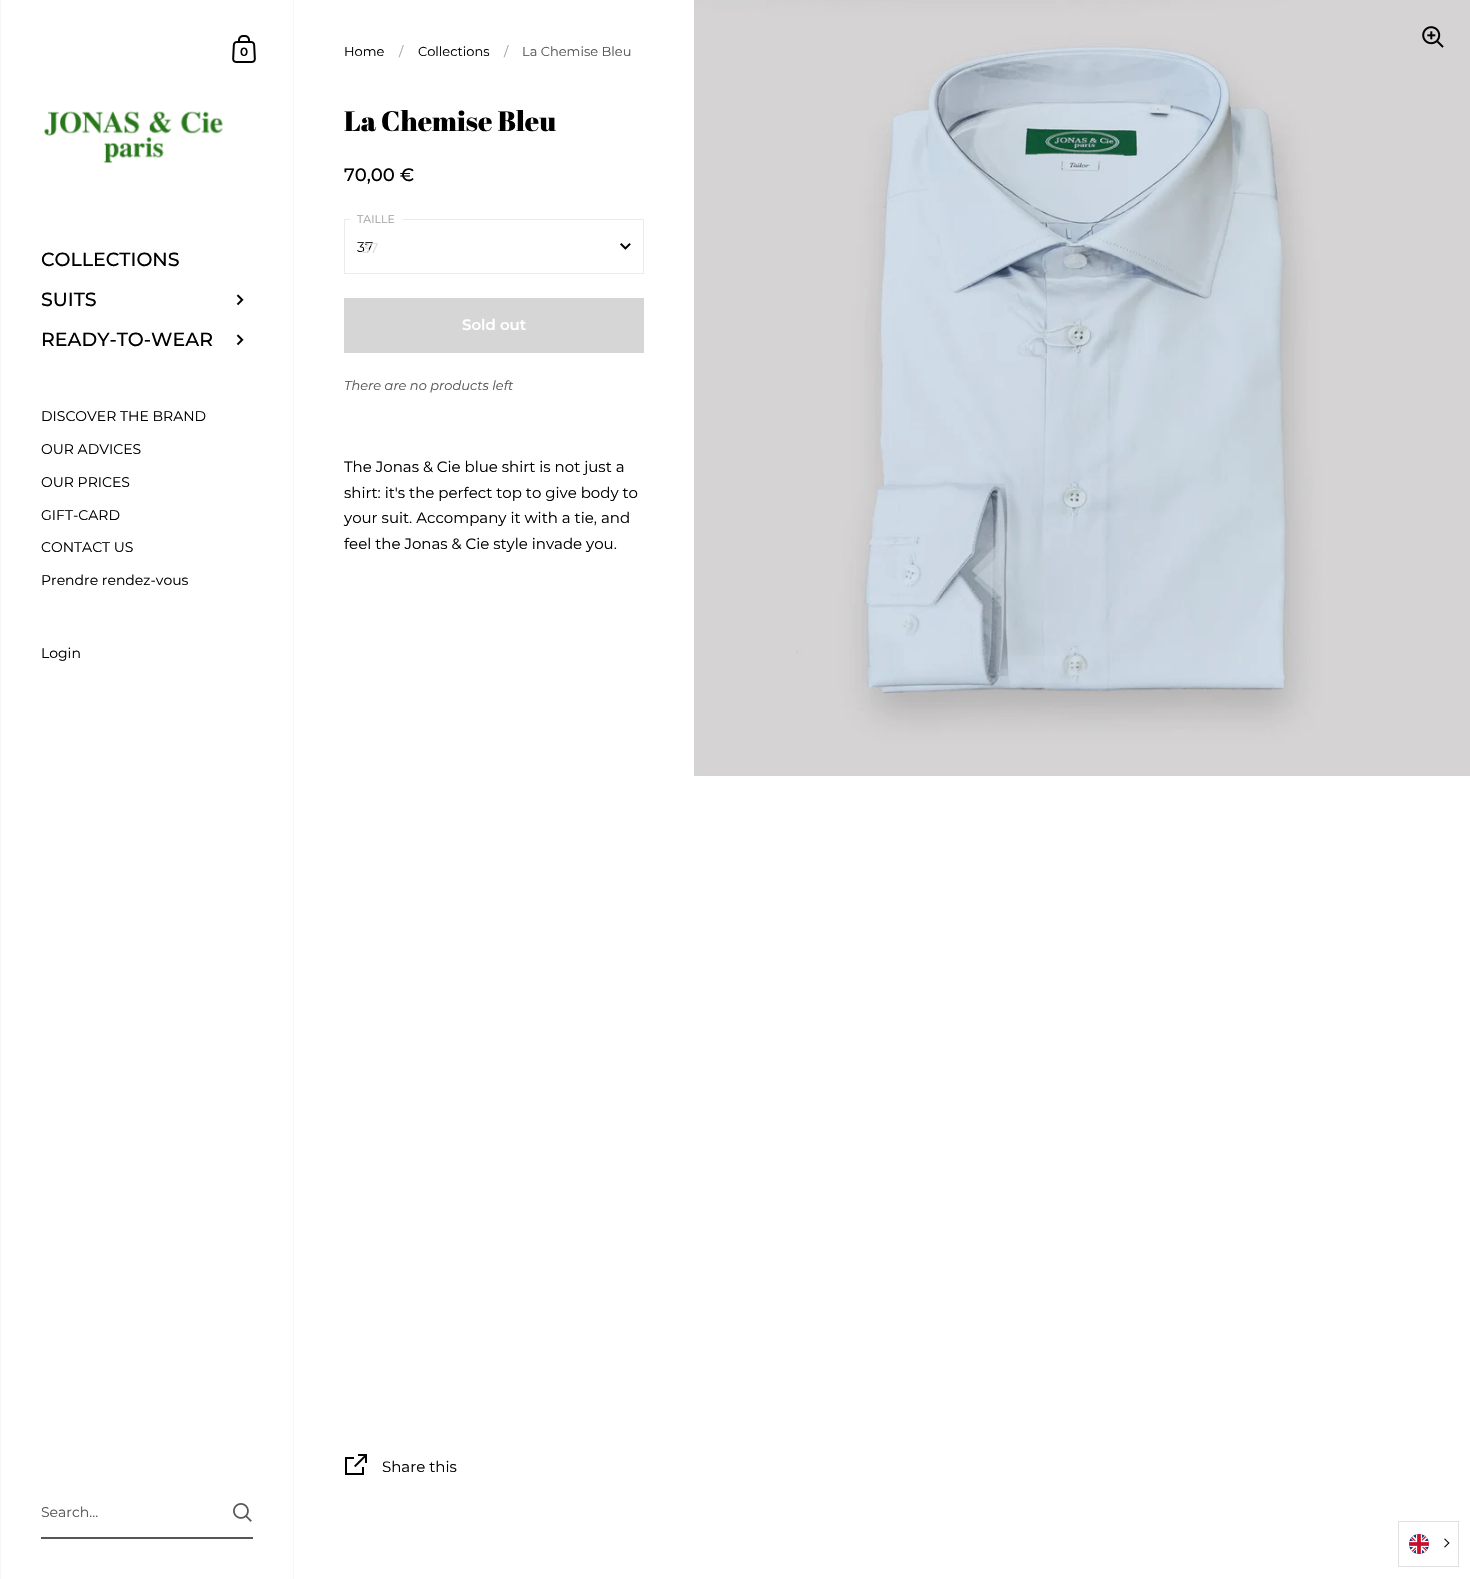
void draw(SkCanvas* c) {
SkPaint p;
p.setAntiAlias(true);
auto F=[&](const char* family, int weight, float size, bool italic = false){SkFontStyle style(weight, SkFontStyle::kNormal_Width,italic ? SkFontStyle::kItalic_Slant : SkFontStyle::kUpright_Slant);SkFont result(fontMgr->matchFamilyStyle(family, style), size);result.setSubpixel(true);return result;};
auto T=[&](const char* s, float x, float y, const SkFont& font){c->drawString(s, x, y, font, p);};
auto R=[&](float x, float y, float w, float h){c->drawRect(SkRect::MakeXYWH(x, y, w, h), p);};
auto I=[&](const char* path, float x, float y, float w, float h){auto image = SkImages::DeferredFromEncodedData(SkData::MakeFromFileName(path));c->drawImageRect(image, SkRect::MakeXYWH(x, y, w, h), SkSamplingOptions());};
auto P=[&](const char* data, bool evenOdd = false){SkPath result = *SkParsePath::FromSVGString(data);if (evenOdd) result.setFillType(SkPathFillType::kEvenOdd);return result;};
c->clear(0xffffffff);
p.setColor(0xfff7f7f7);
R(293,0,1,1579);
I("1.png",232,35,24,28);
auto f1 = F("Montserrat",600,12);
p.setColor(0xff000000);
T("0",240,56,f1);
I("2.png",44,111,179,52);
auto f2 = F("Montserrat",500,19);
T("COLLECTIONS",41,266,f2);
T("SUITS",41,306,f2);
I("3.png",236,294,8,12);
T("READY-TO-WEAR",41,346,f2);
I("3.png",236,334,8,12);
auto f3 = F("Montserrat",400,14);
T("DISCOVER THE BRAND",41,421,f3);
T("OUR ADVICES",41,454,f3);
T("OUR PRICES",41,487,f3);
T("GIFT-CARD",41,520,f3);
T("CONTACT US",41,552,f3);
T("Prendre rendez-vous",41,585,f3);
T("Login",41,658,f3);
p.setColor(0xfff7f7f7);
R(0,0,1,1579);
p.setColor(0xff575757);
R(41,1537,212,2);
T("Search...",41,1517,f3);
I("4.png",233,1503,19,19);
auto f4 = F("Montserrat",400,13);
p.setColor(0xff000000);
T("Home",344,56,f4);
p.setColor(0xffa3a3a3);
T("/",399,56,f4);
p.setColor(0xff000000);
T("Collections",418,56,f4);
p.setColor(0xffa3a3a3);
T("/",504,56,f4);
p.setColor(0xff575757);
T("La Chemise Bleu",522,56,f4);
auto f5 = F("Abril Fatface",400,28);
p.setColor(0xff000000);
T("La Chemise Bleu",344,131,f5);
auto f6 = F("Montserrat",500,18);
T("70,00 €",344,181,f6);
p.setStroke(true);
p.setStrokeWidth(1);
p.setColor(0xffebebeb);
c->drawRect(SkRect::MakeXYWH(344.5,219.5,299,54),p);
p.setStroke(false);
p.setColor(0xffffffff);
R(350,219,52,1);
auto f7 = F("Montserrat",400,11);
p.setColor(0xffa3a3a3);
T("TAILLE",357,223,f7);
p.setColor(0xff000000);
T("37",357,252,f3);
p.setColor(0xffdcdcdc);
T("37",362,253,f3);
I("5.png",620,243,11,7);
p.setColor(0xffffffff);
R(344,273,300,1);
p.setColor(0xffebebeb);
c->drawPath(P("M644 273v1l-1-1z"),p);
p.setColor(0x14000000);
c->drawPath(P("M644 274h-300l1-1h298z"),p);
p.setColor(0xffe1e1e1);
c->drawPath(P("M344 274v-1h1z"),p);
p.setColor(0xffd6d6d6);
R(344,298,300,55);
auto f8 = F("Montserrat",600,15);
p.setColor(0xffffffff);
T("Sold out",462,330,f8);
auto f9 = F("Montserrat",400,13,true);
p.setColor(0xff575757);
T("There are no products left",344,390,f9);
auto f10 = F("Montserrat",400,15);
p.setColor(0xff000000);
T("The Jonas & Cie blue shirt is not just a",344,472,f10);
T("shirt: it's the perfect top to give body to",344,498,f10);
T("your suit. Accompany it with a tie, and",344,523,f10);
T("feel the Jonas & Cie style invade you.",344,549,f10);
I("6.png",345,1454,22,21);
T("Share this",382,1472,f10);
I("7.png",694,0,776,776);
I("8.png",1422,26,22,22);
p.setStroke(true);
p.setColor(0xffe0e0e0);
c->drawRect(SkRect::MakeXYWH(1398.5,1521.5,60,45),p);
I("9.png",1409,1534,20,20);
p.setStroke(false);
p.setColor(0xff000000);
c->drawPath(P("M1445 1538.5l4.5 4.5l-1 .5l-4.5-4.5z"),p);
c->drawPath(P("M1448.5 1542.5l1 .5l-4.5 4.5l-1-.5z"),p);
}
